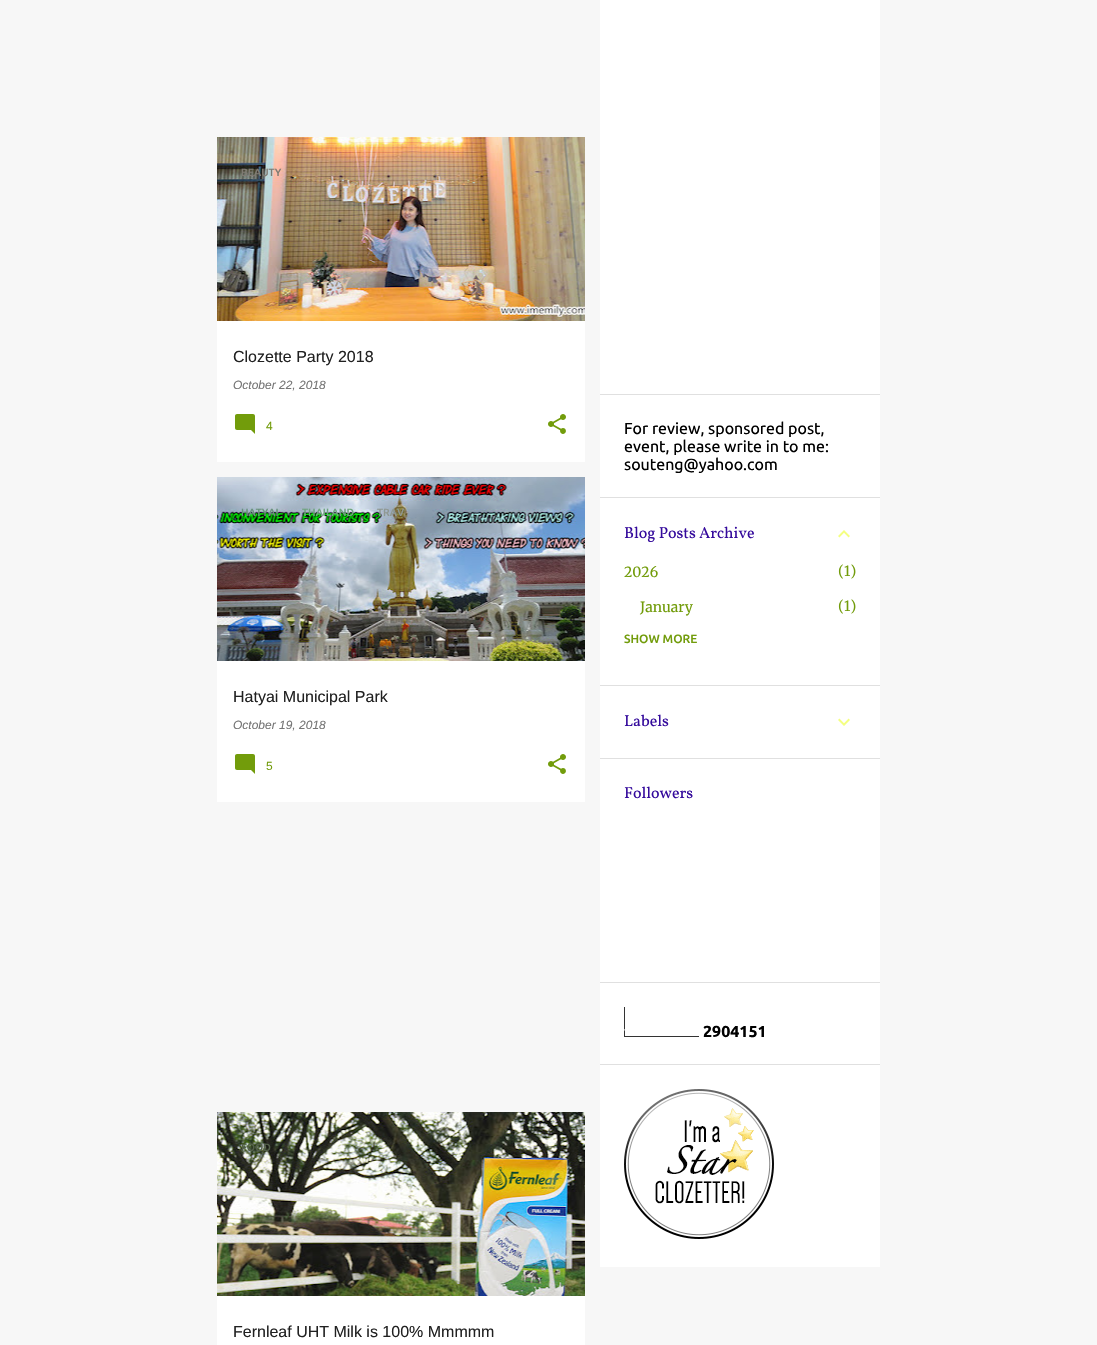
void draw(SkCanvas* c) {
SkPaint p;
p.setAntiAlias(true);
auto F=[&](const char* family, int weight, float size, bool italic = false){SkFontStyle style(weight, SkFontStyle::kNormal_Width,italic ? SkFontStyle::kItalic_Slant : SkFontStyle::kUpright_Slant);SkFont result(fontMgr->matchFamilyStyle(family, style), size);result.setSubpixel(true);return result;};
auto T=[&](const char* s, float x, float y, const SkFont& font){c->drawString(s, x, y, font, p);};
auto R=[&](float x, float y, float w, float h){c->drawRect(SkRect::MakeXYWH(x, y, w, h), p);};
auto I=[&](const char* path, float x, float y, float w, float h){auto image = SkImages::DeferredFromEncodedData(SkData::MakeFromFileName(path));c->drawImageRect(image, SkRect::MakeXYWH(x, y, w, h), SkSamplingOptions());};
c->clear(0xfff7f7f7);
p.setColor(0xffffffff);
R(217,321,368,141);
I("1.png",217,137,368,184);
auto f1 = F("Ubuntu",500,10.5);
p.setColor(0xff7f7b73);
T("BEAUTY",241,176,f1);
auto f2 = F("Arimo",400,12,true);
p.setColor(0xff757575);
T("October 22, 2018",233,389,f2);
auto f3 = F("Liberation Sans",400,16);
p.setColor(0xff212121);
T("Clozette Party 2018",233,362,f3);
I("2.png",235,414,20,20);
auto f4 = F("Liberation Sans",400,12);
p.setColor(0xff729c0b);
T("4",266,430,f4);
I("3.png",548,414,18,20);
p.setColor(0xffffffff);
R(217,661,368,141);
I("4.png",217,477,368,184);
p.setColor(0xff69927c);
T("HATYAI",241,516,f1);
p.setColor(0xff6fa37f);
T("THAILAND",302,516,f1);
p.setColor(0xff8f9892);
T("TRAV",377,516,f1);
p.setColor(0xff757575);
T("October 19, 2018",233,729,f2);
p.setColor(0xff212121);
T("Hatyai Municipal Park",233,702,f3);
I("2.png",235,754,20,20);
p.setColor(0xff729c0b);
T("5",266,770,f4);
I("3.png",548,754,18,20);
p.setColor(0xffffffff);
R(217,1296,368,49);
I("5.png",217,1112,368,184);
p.setColor(0xff536049);
T("FOOD",241,1151,f1);
p.setColor(0xff212121);
T("Fernleaf UHT Milk is 100% Mmmmm",233,1337,f3);
p.setColor(0xffffffff);
R(600,0,280,1267);
p.setColor(0xffe0e0e0);
R(600,394,280,1);
auto f5 = F("Ubuntu",400,16);
p.setColor(0xff000000);
T("For review, sponsored post,",624,434,f5);
T("event, please write in to me:",624,452,f5);
T("souteng@yahoo.com",624,470,f5);
p.setColor(0xffe0e0e0);
R(600,497,280,1);
auto f6 = F("Vollkorn",400,16);
p.setColor(0xff340a9c);
T("Blog Posts Archive",624,538,f6);
I("6.png",838,530,12,8);
auto f7 = F("Merriweather",400,14);
p.setColor(0xff729c0b);
T("2026",624,577,f7);
T("(1)",838,576,f7);
T("January",640,612,f7);
T("(1)",838,611,f7);
auto f8 = F("Ubuntu",500,12);
T("SHOW MORE",624,643,f8);
p.setColor(0xffe0e0e0);
R(600,685,280,1);
p.setColor(0xff340a9c);
T("Labels",624,726,f6);
I("7.png",838,718,12,8);
p.setColor(0xffe0e0e0);
R(600,758,280,1);
p.setColor(0xff340a9c);
T("Followers",624,798,f6);
p.setColor(0xffe0e0e0);
R(600,982,280,1);
I("8.png",624,1007,75,30);
auto f9 = F("Ubuntu",700,16);
p.setColor(0xff000000);
T("2904151",703,1037,f9);
p.setColor(0xffe0e0e0);
R(600,1064,280,1);
I("9.png",624,1089,150,150);
}
